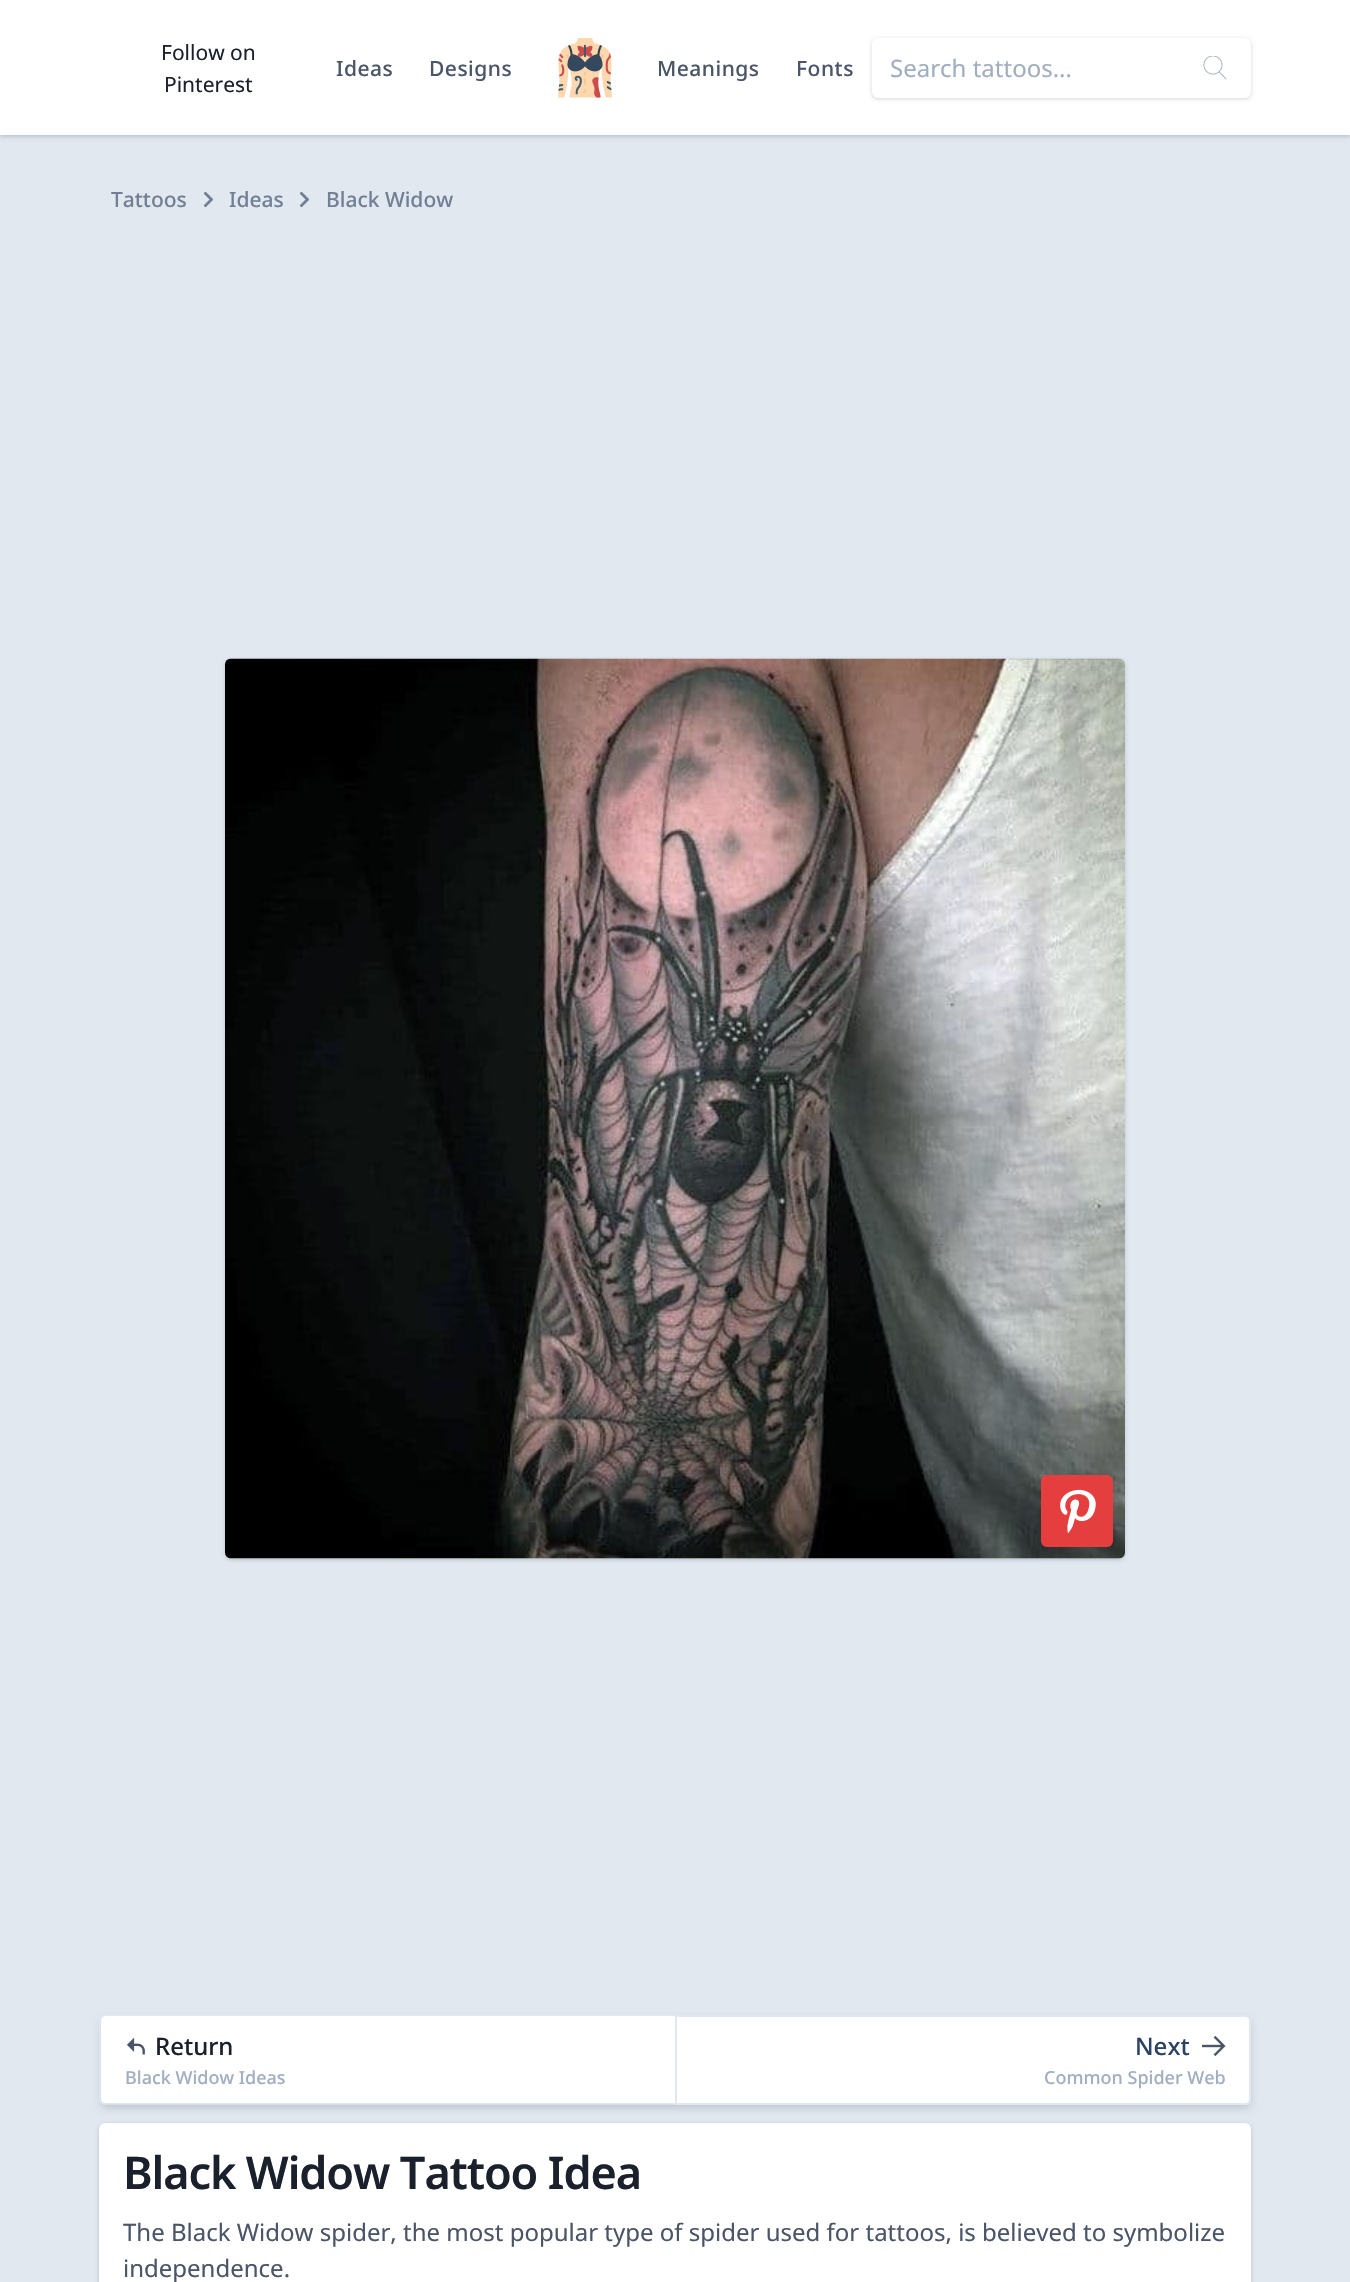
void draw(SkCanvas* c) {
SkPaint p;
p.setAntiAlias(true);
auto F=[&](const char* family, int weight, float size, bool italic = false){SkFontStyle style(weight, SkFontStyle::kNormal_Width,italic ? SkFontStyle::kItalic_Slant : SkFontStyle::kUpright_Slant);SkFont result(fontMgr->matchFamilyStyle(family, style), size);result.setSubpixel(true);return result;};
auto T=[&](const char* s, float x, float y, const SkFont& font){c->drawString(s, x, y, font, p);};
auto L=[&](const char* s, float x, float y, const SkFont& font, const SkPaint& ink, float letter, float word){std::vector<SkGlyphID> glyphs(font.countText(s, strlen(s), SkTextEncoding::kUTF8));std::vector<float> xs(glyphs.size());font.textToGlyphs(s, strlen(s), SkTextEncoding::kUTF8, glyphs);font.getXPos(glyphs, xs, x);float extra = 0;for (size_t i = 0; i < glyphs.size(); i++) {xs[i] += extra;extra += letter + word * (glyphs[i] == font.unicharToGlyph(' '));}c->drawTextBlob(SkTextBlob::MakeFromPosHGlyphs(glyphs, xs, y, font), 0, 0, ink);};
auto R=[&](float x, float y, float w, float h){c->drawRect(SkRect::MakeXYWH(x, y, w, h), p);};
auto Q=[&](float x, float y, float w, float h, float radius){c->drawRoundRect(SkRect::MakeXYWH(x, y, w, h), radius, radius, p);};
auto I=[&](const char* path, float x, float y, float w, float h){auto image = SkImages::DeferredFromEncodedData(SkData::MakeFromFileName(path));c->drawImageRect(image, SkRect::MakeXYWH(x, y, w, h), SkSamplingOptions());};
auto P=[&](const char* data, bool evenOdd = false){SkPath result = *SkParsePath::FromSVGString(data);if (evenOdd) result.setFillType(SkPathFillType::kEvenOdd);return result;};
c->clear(0xffe2e8f0);
p.setColor(0x0f000000);
p.setMaskFilter(SkMaskFilter::MakeBlur(kNormal_SkBlurStyle, 1.5));
c->drawRect(SkRect::MakeXYWH(0,2,1350,135),p);
p.setMaskFilter(nullptr);
p.setColor(0x1a000000);
p.setMaskFilter(SkMaskFilter::MakeBlur(kNormal_SkBlurStyle, 2));
c->drawRect(SkRect::MakeXYWH(0,2,1350,135),p);
p.setMaskFilter(nullptr);
p.setColor(0xffffffff);
R(0,0,1350,135);
auto f1 = F("Noto Sans",400,21);
p.setColor(0xff1a202c);
T("Follow on",161,60,f1);
T("Pinterest",164,92,f1);
auto f2 = F("Noto Sans",500,21);
p.setColor(0xff4a5568);
L("Ideas",336,76,f2,p,.5,0);
L("Designs",429,76,f2,p,.5,0);
I("1.png",558,38,54,60);
L("Meanings",657,76,f2,p,.5,0);
L("Fonts",796,76,f2,p,.5,0);
p.setColor(0x0f000000);
p.setMaskFilter(SkMaskFilter::MakeBlur(kNormal_SkBlurStyle, 1.5));
c->drawRoundRect(SkRect::MakeXYWH(872,39,379,60),6,6,p);
p.setMaskFilter(nullptr);
p.setColor(0x1a000000);
p.setMaskFilter(SkMaskFilter::MakeBlur(kNormal_SkBlurStyle, 2));
c->drawRoundRect(SkRect::MakeXYWH(872,39,379,60),6,6,p);
p.setMaskFilter(nullptr);
p.setColor(0xffffffff);
Q(872,38,379,60,6);
auto f3 = F("Noto Sans",400,24);
p.setColor(0xffa0aec0);
T("Search tattoos...",890,77,f3);
I("2.png",1203,56,24,24);
p.setColor(0xff718096);
T("Tattoos",111,207,f2);
I("3.png",203,191,11,17);
T("Ideas",229,207,f2);
I("3.png",299,191,11,17);
T("Black Widow",326,207,f2);
p.setColor(0x0f000000);
p.setMaskFilter(SkMaskFilter::MakeBlur(kNormal_SkBlurStyle, 1.5));
c->drawRoundRect(SkRect::MakeXYWH(225,660,900,900),6,6,p);
p.setMaskFilter(nullptr);
p.setColor(0x1a000000);
p.setMaskFilter(SkMaskFilter::MakeBlur(kNormal_SkBlurStyle, 2));
c->drawRoundRect(SkRect::MakeXYWH(225,660,900,900),6,6,p);
p.setMaskFilter(nullptr);
I("4.png",225,658,900,901);
p.setMaskFilter(SkMaskFilter::MakeBlur(kNormal_SkBlurStyle, 4.5));
c->drawRoundRect(SkRect::MakeXYWH(1043,1482,69,69),5,5,p);
p.setMaskFilter(nullptr);
p.setColor(0xffe53e3e);
Q(1041,1475,72,72,6);
I("5.png",1060,1489,36,44);
p.setColor(0x0f000000);
p.setMaskFilter(SkMaskFilter::MakeBlur(kNormal_SkBlurStyle, 3));
c->drawRoundRect(SkRect::MakeXYWH(101,2019,1149,87),5,5,p);
p.setMaskFilter(nullptr);
c->save();
c->clipPath(P("M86 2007h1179v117h-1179zm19 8h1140c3.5 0 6 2.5 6 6v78c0 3.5-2.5 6-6 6h-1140c-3.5 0-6-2.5-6-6v-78c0-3.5 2.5-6 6-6z",true),true);
p.setColor(0x1a000000);
p.setMaskFilter(SkMaskFilter::MakeBlur(kNormal_SkBlurStyle, 4.5));
c->drawRoundRect(SkRect::MakeXYWH(101,2022,1149,87),5,5,p);
p.setMaskFilter(nullptr);
c->restore();
p.setColor(0xffffffff);
c->drawPath(P("M106 2016h569v87h-569c-3 0-5-2-5-5v-77c0-3 2-5 5-5z"),p);
p.setColor(0xffe2e8f0);
c->drawPath(P("M105 2014h570v90h-570c-3 0-6-2-6-6v-78c0-3 3-6 6-6zm0 2h570v87h-570c-2 0-5-2-5-5v-78c0-2 3-4 5-4z",true),p);
I("6.png",127,2037,18,18);
auto f4 = F("Noto Sans",500,24);
p.setColor(0xff1a202c);
T("Return",155,2055,f4);
auto f5 = F("Noto Sans",500,18);
p.setColor(0xffa0aec0);
T("Black Widow Ideas",125,2084,f5);
p.setColor(0xffffffff);
c->drawPath(P("M676 2016h569c3 0 5 2 5 5v78c0 3-2 5-5 5h-569z"),p);
p.setStroke(true);
p.setStrokeWidth(2);
p.setColor(0xffe2e8f0);
c->drawPath(P("M676 2016h569c3 0 5 2 5 5v78c0 3-2 5-5 5h-569z"),p);
p.setStroke(false);
p.setColor(0xff2a4365);
T("Next",1135,2055,f4);
I("7.png",1202,2035,24,22);
p.setColor(0xffa0aec0);
T("Common Spider Web",1044,2084,f5);
p.setColor(0x0f000000);
p.setMaskFilter(SkMaskFilter::MakeBlur(kNormal_SkBlurStyle, 1.5));
c->drawRoundRect(SkRect::MakeXYWH(99,2124,1152,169),6,6,p);
p.setMaskFilter(nullptr);
p.setColor(0x1a000000);
p.setMaskFilter(SkMaskFilter::MakeBlur(kNormal_SkBlurStyle, 2));
c->drawRoundRect(SkRect::MakeXYWH(99,2124,1152,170),6,6,p);
p.setMaskFilter(nullptr);
p.setColor(0xffffffff);
Q(99,2123,1152,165,6);
auto f6 = F("Noto Sans",600,45);
p.setColor(0xff1a202c);
L("Black Widow Tattoo Idea",123,2189,f6,p,-1.1,0);
p.setColor(0xff4a5568);
T("The Black Widow spider, the most popular type of spider used for tattoos, is believed to symbolize",123,2241,f3);
T("independence.",123,2277,f3);
}
